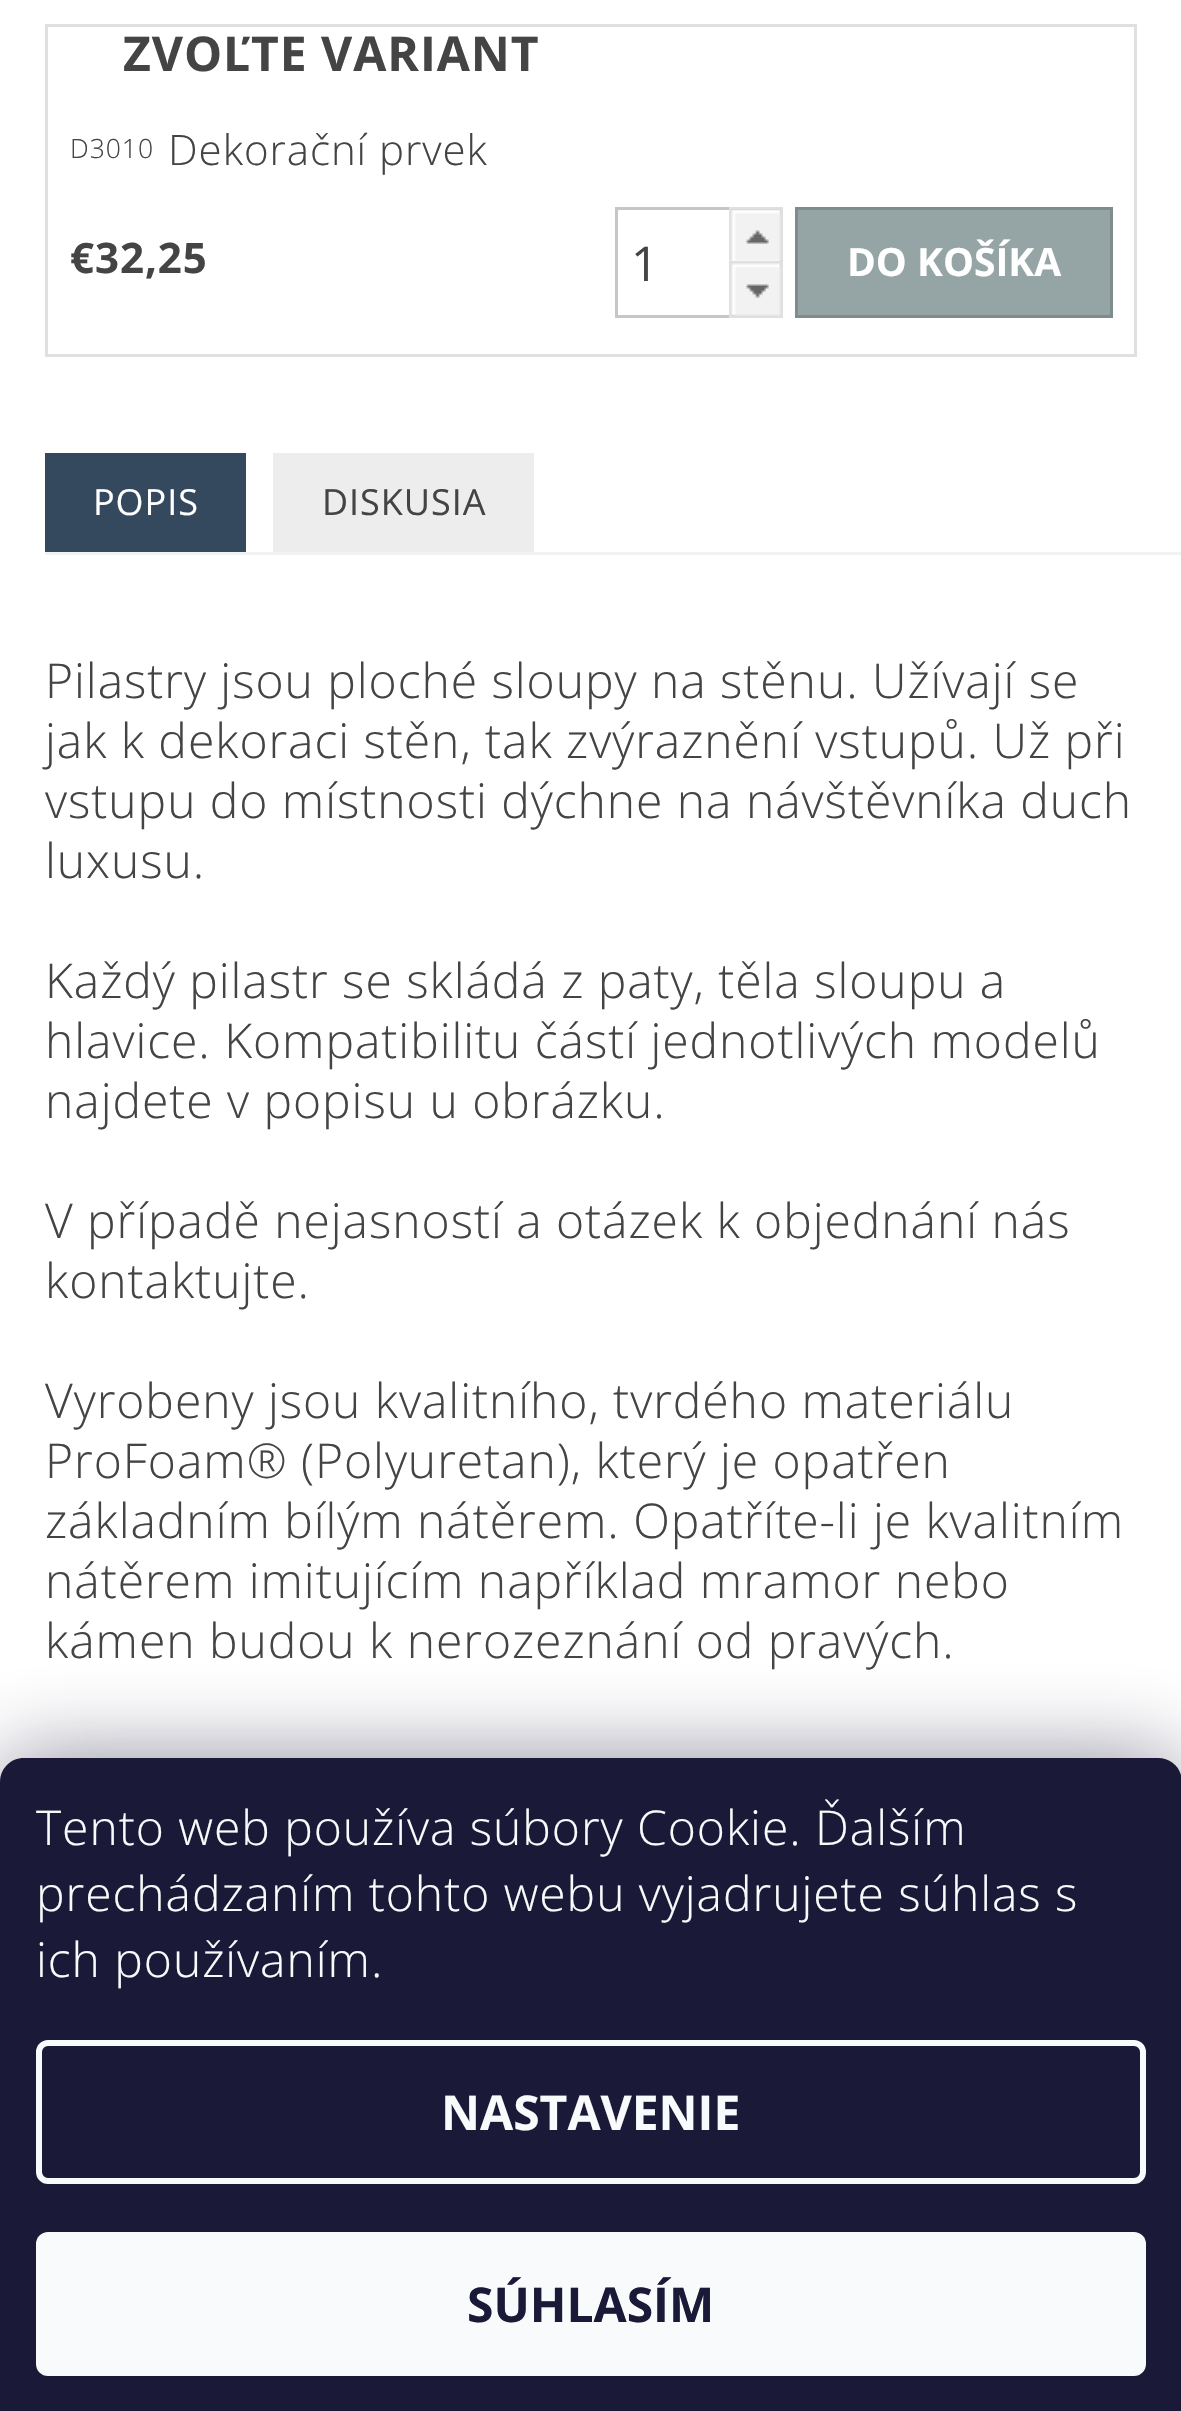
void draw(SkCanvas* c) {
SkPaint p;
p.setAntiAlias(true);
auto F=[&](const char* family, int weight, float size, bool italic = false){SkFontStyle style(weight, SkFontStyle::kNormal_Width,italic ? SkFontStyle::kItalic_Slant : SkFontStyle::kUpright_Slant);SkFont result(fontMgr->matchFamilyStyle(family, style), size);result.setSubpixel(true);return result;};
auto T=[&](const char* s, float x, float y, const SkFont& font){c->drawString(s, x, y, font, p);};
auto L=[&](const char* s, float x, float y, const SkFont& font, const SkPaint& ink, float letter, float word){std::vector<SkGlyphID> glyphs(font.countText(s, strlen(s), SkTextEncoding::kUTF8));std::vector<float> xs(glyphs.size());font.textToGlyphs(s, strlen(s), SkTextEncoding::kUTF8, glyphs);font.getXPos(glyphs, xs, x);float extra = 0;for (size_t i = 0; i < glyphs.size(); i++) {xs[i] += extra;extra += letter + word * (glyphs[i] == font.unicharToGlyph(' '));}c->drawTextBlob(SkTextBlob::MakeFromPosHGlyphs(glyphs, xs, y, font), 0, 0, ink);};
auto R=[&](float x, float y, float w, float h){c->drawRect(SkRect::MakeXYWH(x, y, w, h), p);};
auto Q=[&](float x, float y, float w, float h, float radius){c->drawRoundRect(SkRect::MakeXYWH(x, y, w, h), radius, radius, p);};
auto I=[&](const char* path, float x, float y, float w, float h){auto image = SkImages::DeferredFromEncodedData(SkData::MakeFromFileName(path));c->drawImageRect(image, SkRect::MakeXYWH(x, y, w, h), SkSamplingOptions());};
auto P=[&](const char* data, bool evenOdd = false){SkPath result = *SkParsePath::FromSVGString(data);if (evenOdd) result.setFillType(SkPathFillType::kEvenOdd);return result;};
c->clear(0xffffffff);
p.setStroke(true);
p.setStrokeWidth(3);
p.setColor(0xffe0e0e0);
c->drawRect(SkRect::MakeXYWH(46.5,25.5,1089,330),p);
auto f1 = F("Open Sans",700,48);
p.setStroke(false);
p.setColor(0xff444444);
L("ZVOĽTE VARIANT",123,71,f1,p,.95,0);
auto f2 = F("Open Sans",300,26.5);
L("D3010",70,158,f2,p,.95,0);
auto f3 = F("Open Sans",300,42);
L("Dekorační prvek",168,165,f3,p,.95,0);
auto f4 = F("Open Sans",700,42);
L("€32,25",70,273,f4,p,.95,0);
p.setStroke(true);
p.setColor(0xffc6c6c6);
c->drawRect(SkRect::MakeXYWH(616.5,208.5,165,108),p);
auto f5 = F("Open Sans",400,48);
p.setStroke(false);
p.setColor(0xff444444);
T("1",631,281,f5);
I("1.png",729,207,54,54);
I("2.png",729,261,54,57);
p.setColor(0xff95a5a6);
c->drawRect(SkRect::MakeXYWH(796.5,208.5,315,108),p);
p.setStroke(true);
p.setColor(0xff7f8c8d);
c->drawRect(SkRect::MakeXYWH(796.5,208.5,315,108),p);
auto f6 = F("Open Sans",700,39);
p.setStroke(false);
p.setColor(0xffffffff);
T("DO KOŠÍKA",847,276,f6);
p.setColor(0xfff2f2f2);
R(45,552,1136,3);
p.setColor(0xff34495e);
R(45,453,201,99);
auto f7 = F("Open Sans",400,36);
p.setColor(0xffffffff);
L("POPIS",93,515,f7,p,.95,0);
p.setColor(0xffededed);
R(273,453,261,99);
p.setColor(0xff444444);
L("DISKUSIA",322,515,f7,p,.95,0);
auto f8 = F("Open Sans",300,48);
L("Pilastry jsou ploché sloupy na stěnu. Užívají se",45,698,f8,p,.95,0);
L("jak k dekoraci stěn, tak zvýraznění vstupů. Už při",45,758,f8,p,.95,0);
L("vstupu do místnosti dýchne na návštěvníka duch",45,818,f8,p,.95,0);
L("luxusu.",45,878,f8,p,.95,0);
L("Každý pilastr se skládá z paty, těla sloupu a",45,998,f8,p,.95,0);
L("hlavice. Kompatibilitu částí jednotlivých modelů",45,1058,f8,p,.95,0);
L("najdete v popisu u obrázku.",45,1118,f8,p,.95,0);
L("V případě nejasností a otázek k objednání nás",45,1238,f8,p,.95,0);
L("kontaktujte.",45,1298,f8,p,.95,0);
L("Vyrobeny jsou kvalitního, tvrdého materiálu",45,1418,f8,p,.95,0);
L("ProFoam® (Polyuretan), který je opatřen",45,1478,f8,p,.95,0);
L("základním bílým nátěrem. Opatříte-li je kvalitním",45,1538,f8,p,.95,0);
L("nátěrem imitujícím například mramor nebo",45,1598,f8,p,.95,0);
L("kámen budou k nerozeznání od pravých.",45,1658,f8,p,.95,0);
p.setColor(0x801b1939);
p.setMaskFilter(SkMaskFilter::MakeBlur(kNormal_SkBlurStyle, 45));
c->drawRoundRect(SkRect::MakeXYWH(0,1758,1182,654),24,24,p);
p.setMaskFilter(nullptr);
p.setColor(0xff1a1937);
c->drawPath(P("M24 1758h1134c13.5 0 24 10.5 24 24v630h-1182v-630c0-13.5 10.5-24 24-24z"),p);
p.setColor(0xfff8fafb);
L("Tento web používa súbory Cookie. Ďalším",36,1845,f8,p,.95,0);
L("prechádzaním tohto webu vyjadrujete súhlas s",36,1911,f8,p,.95,0);
L("ich používaním.",36,1977,f8,p,.95,0);
p.setStroke(true);
p.setStrokeWidth(6);
c->drawRoundRect(SkRect::MakeXYWH(39,2043,1104,138),9,9,p);
p.setStroke(false);
T("NASTAVENIE",441,2130,f1);
Q(36,2232,1110,144,12);
p.setColor(0xff1a1937);
T("SÚHLASÍM",467,2322,f1);
}
